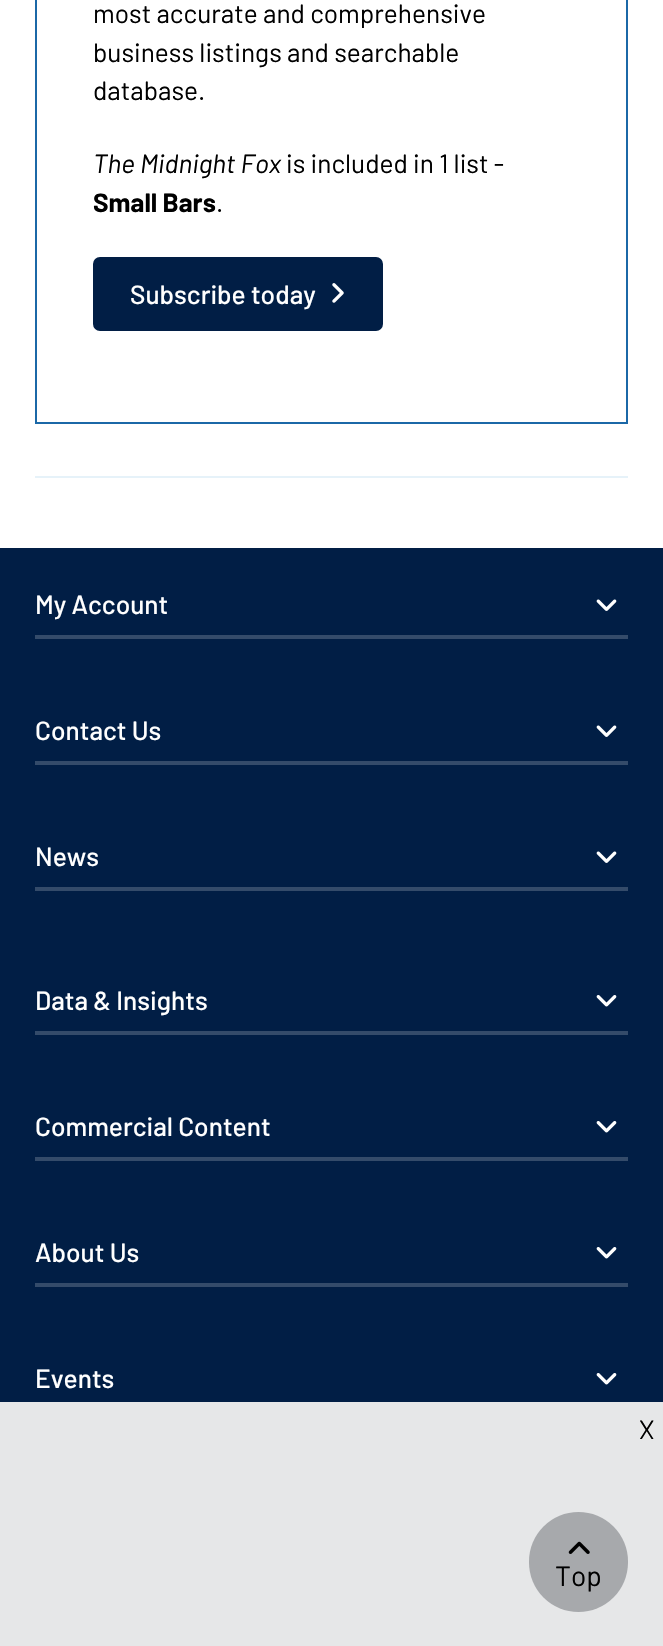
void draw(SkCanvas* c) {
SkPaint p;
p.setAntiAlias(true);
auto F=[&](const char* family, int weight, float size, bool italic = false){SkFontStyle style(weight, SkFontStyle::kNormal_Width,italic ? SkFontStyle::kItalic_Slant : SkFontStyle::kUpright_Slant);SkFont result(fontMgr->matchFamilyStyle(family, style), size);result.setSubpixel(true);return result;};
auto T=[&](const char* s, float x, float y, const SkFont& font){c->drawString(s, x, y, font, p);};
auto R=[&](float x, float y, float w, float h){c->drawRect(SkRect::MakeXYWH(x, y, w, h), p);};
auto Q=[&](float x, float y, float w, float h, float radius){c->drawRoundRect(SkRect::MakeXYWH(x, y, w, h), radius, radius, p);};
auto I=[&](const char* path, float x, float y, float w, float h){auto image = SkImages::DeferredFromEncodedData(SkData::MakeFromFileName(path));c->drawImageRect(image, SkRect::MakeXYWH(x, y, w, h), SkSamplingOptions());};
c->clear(0xffffffff);
p.setColor(0xffe6f2f9);
R(35,476,593,2);
p.setStroke(true);
p.setStrokeWidth(2);
p.setColor(0xff1b68a7);
c->drawRect(SkRect::MakeXYWH(36,-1,591,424),p);
auto f1 = F("Barlow",400,26.25);
p.setStroke(false);
p.setColor(0xff000000);
T("most accurate and comprehensive",93,23,f1);
T("business listings and searchable",93,62,f1);
T("database.",93,100,f1);
auto f2 = F("Barlow",400,26.25,true);
T("The Midnight Fox",93,173,f2);
T("is included in 1 list -",286,173,f1);
auto f3 = F("Barlow",700,26.25);
T("Small Bars",93,212,f3);
T(".",216,212,f1);
p.setColor(0xff011e45);
c->drawRoundRect(SkRect::MakeXYWH(94,258,288,72),6,6,p);
p.setStroke(true);
c->drawRoundRect(SkRect::MakeXYWH(94,258,288,72),6,6,p);
auto f4 = F("Barlow",500,26.25);
p.setStroke(false);
p.setColor(0xffffffff);
T("Subscribe today",130,304,f4);
I("1.png",332,283,12,20);
p.setColor(0xffe6e7e8);
R(0,1402,663,244);
p.setColor(0xff000000);
T("X",639,1439,f1);
p.setColor(0xff011e45);
R(0,548,663,854);
p.setColor(0xff344b6a);
R(35,635,593,4);
p.setColor(0xffffffff);
T("My Account",35,614,f4);
I("2.png",596,599,21,12);
p.setColor(0xff344b6a);
R(35,761,593,4);
p.setColor(0xffffffff);
T("Contact Us",35,740,f4);
I("2.png",596,725,21,12);
p.setColor(0xff344b6a);
R(35,887,593,4);
p.setColor(0xffffffff);
T("News",35,866,f4);
I("2.png",596,851,21,12);
p.setColor(0xff344b6a);
R(35,1031,593,4);
p.setColor(0xffffffff);
T("Data & Insights",35,1010,f4);
I("3.png",596,995,21,12);
p.setColor(0xff344b6a);
R(35,1157,593,4);
p.setColor(0xffffffff);
T("Commercial Content",35,1136,f4);
I("3.png",596,1121,21,12);
p.setColor(0xff344b6a);
R(35,1283,593,4);
p.setColor(0xffffffff);
T("About Us",35,1262,f4);
I("3.png",596,1247,21,12);
T("Events",35,1388,f4);
I("3.png",596,1373,21,12);
p.setColor(0xffa7a9ac);
Q(529,1512,99,100,49.5);
I("4.png",568,1541,22,13);
auto f5 = F("Barlow",400,28);
p.setColor(0xff000000);
T("Top",555,1586,f5);
}
